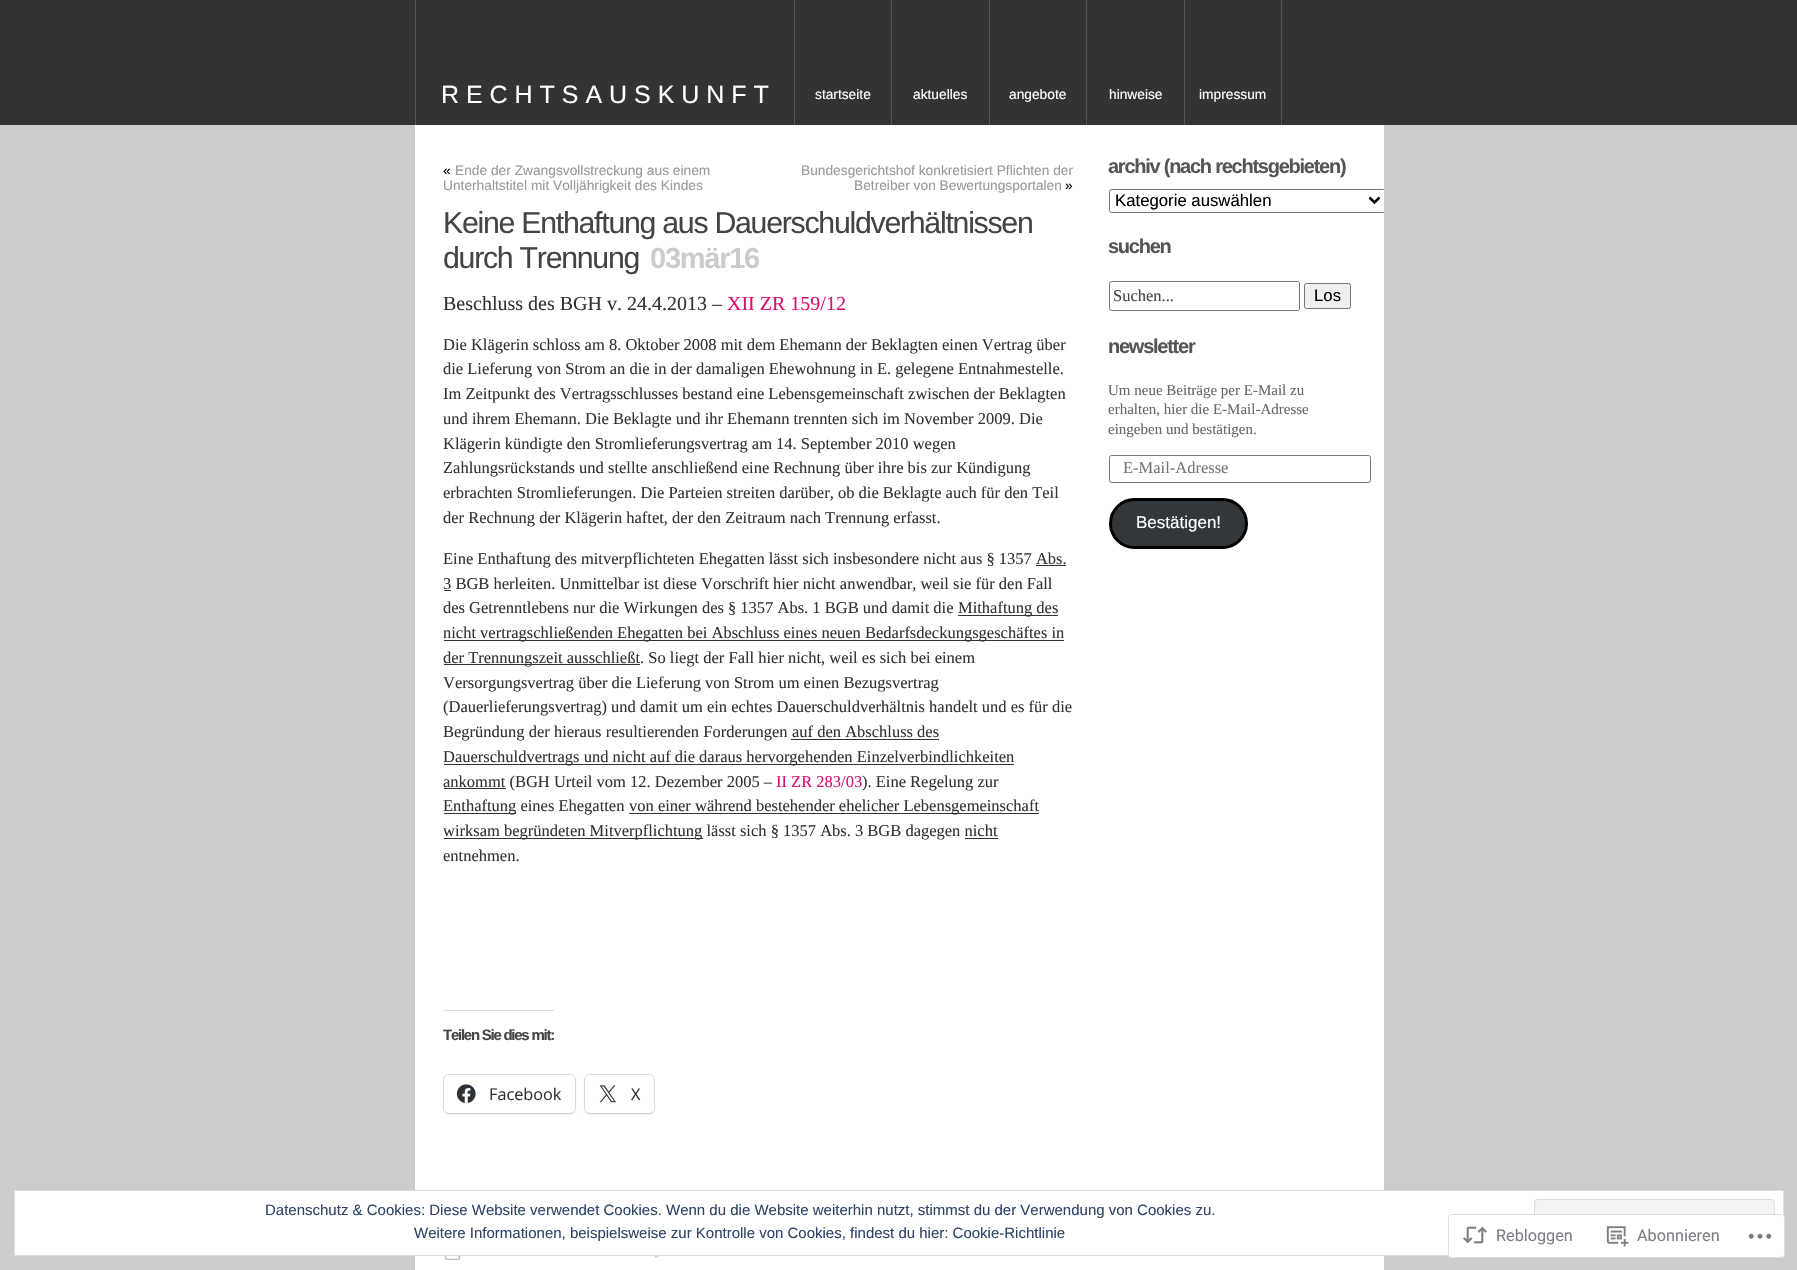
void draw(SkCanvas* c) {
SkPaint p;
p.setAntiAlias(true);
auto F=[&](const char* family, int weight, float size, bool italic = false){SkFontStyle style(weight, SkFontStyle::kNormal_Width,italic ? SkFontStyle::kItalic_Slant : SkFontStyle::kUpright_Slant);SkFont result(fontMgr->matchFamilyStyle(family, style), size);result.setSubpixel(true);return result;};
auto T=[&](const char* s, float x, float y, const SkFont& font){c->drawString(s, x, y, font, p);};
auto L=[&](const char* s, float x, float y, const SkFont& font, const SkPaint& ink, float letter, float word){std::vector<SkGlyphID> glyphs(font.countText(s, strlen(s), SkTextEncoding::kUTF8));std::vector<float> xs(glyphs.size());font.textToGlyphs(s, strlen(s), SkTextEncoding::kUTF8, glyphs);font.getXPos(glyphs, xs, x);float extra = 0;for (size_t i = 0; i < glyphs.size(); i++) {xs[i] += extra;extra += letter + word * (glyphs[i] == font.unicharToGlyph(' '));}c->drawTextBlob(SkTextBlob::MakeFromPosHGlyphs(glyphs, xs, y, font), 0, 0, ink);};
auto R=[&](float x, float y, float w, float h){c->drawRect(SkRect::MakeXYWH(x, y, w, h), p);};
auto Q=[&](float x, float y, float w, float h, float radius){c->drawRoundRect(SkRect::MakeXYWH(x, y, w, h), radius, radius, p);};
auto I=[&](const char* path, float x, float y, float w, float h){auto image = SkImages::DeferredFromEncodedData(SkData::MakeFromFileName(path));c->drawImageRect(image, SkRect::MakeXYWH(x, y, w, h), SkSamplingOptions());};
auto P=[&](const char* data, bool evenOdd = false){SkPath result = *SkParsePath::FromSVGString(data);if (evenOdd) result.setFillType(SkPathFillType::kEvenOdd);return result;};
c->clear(0xffcccccc);
p.setColor(0xff333333);
R(0,0,1797,125);
p.setColor(0xffffffff);
R(415,125,969,1145);
p.setColor(0xff555555);
R(415,0,1,125);
R(794,0,1,125);
auto f1 = F("Liberation Sans",400,25);
p.setColor(0xffffffff);
T("R E C H T S A U S K U N F T",441,103,f1);
p.setColor(0xff555555);
R(891,0,1,125);
auto f2 = F("Liberation Sans",400,13.75);
p.setColor(0xffffffff);
T("startseite",815,99,f2);
p.setColor(0xff555555);
R(989,0,1,125);
p.setColor(0xffffffff);
T("aktuelles",913,99,f2);
p.setColor(0xff555555);
R(1086,0,1,125);
p.setColor(0xffffffff);
T("angebote",1009,99,f2);
p.setColor(0xff555555);
R(1184,0,1,125);
p.setColor(0xffffffff);
T("hinweise",1109,99,f2);
p.setColor(0xff555555);
R(1281,0,1,125);
p.setColor(0xffffffff);
T("impressum",1199,99,f2);
p.setColor(0xff000000);
T("«",443,175,f2);
p.setColor(0xff999999);
T("Ende der Zwangsvollstreckung aus einem",455,175,f2);
T("Unterhaltstitel mit Volljährigkeit des Kindes",443,190,f2);
T("Bundesgerichtshof konkretisiert Pflichten der",801,175,f2);
T("Betreiber von Bewertungsportalen",854,190,f2);
p.setColor(0xff000000);
T("»",1065,190,f2);
auto f3 = F("Liberation Sans",400,30.25);
p.setColor(0xff444444);
L("Keine Enthaftung aus Dauerschuldverhältnissen",443,233,f3,p,-1.25,0);
L("durch Trennung",443,268,f3,p,-1.25,0);
auto f4 = F("Liberation Sans",700,29);
p.setColor(0xffcccccc);
L("03mär16",650,268,f4,p,-1.25,0);
auto f5 = F("Liberation Serif",400,20);
p.setColor(0xff333333);
T("Beschluss des BGH v. 24.4.2013 –",443,310,f5);
p.setColor(0xffda1071);
T("XII ZR 159/12",727,310,f5);
auto f6 = F("Liberation Serif",400,16.5);
p.setColor(0xff333333);
T("Die Klägerin schloss am 8. Oktober 2008 mit dem Ehemann der Beklagten einen Vertrag über",443,350,f6);
T("die Lieferung von Strom an die in der damaligen Ehewohnung in E. gelegene Entnahmestelle.",443,374,f6);
T("Im Zeitpunkt des Vertragsschlusses bestand eine Lebensgemeinschaft zwischen der Beklagten",443,399,f6);
T("und ihrem Ehemann. Die Beklagte und ihr Ehemann trennten sich im November 2009. Die",443,424,f6);
T("Klägerin kündigte den Stromlieferungsvertrag am 14. September 2010 wegen",443,449,f6);
T("Zahlungsrückstands und stellte anschließend eine Rechnung über ihre bis zur Kündigung",443,473,f6);
T("erbrachten Stromlieferungen. Die Parteien streiten darüber, ob die Beklagte auch für den Teil",443,498,f6);
T("der Rechnung der Klägerin haftet, der den Zeitraum nach Trennung erfasst.",443,523,f6);
T("Eine Enthaftung des mitverpflichteten Ehegatten lässt sich insbesondere nicht aus § 1357 Abs.",443,564,f6);
R(444,590,7,1);
T("3 BGB herleiten. Unmittelbar ist diese Vorschrift hier nicht anwendbar, weil sie für den Fall",443,589,f6);
R(1036,565,30,1);
T("des Getrenntlebens nur die Wirkungen des § 1357 Abs. 1 BGB und damit die",443,613,f6);
R(958,615,100,1);
T("Mithaftung des",958,613,f6);
R(444,640,620,1);
T("nicht vertragschließenden Ehegatten bei Abschluss eines neuen Bedarfsdeckungsgeschäftes in",443,638,f6);
R(444,664,196,1);
T("der Trennungszeit ausschließt. So liegt der Fall hier nicht, weil es sich bei einem",443,663,f6);
T("Versorgungsvertrag über die Lieferung von Strom um einen Bezugsvertrag",443,688,f6);
T("(Dauerlieferungsvertrag) und damit um ein echtes Dauerschuldverhältnis handelt und es für die",443,712,f6);
T("Begründung der hieraus resultierenden Forderungen",443,737,f6);
T("auf den Abschluss des",792,737,f6);
R(791,739,148,1);
R(444,764,570,1);
T("Dauerschuldvertrags und nicht auf die daraus hervorgehenden Einzelverbindlichkeiten",443,762,f6);
R(444,788,62,1);
T("ankommt (BGH Urteil vom 12. Dezember 2005 –",443,787,f6);
p.setColor(0xffda1071);
T("II ZR 283/03",776,787,f6);
p.setColor(0xff333333);
T("). Eine Regelung zur",862,787,f6);
R(444,813,72,1);
T("Enthaftung eines Ehegatten",443,811,f6);
R(629,813,410,1);
T("von einer während bestehender ehelicher Lebensgemeinschaft",629,811,f6);
R(444,838,259,1);
T("wirksam begründeten Mitverpflichtung lässt sich § 1357 Abs. 3 BGB dagegen nicht",443,836,f6);
R(965,838,33,1);
T("entnehmen.",443,861,f6);
p.setColor(0xffdcdcde);
R(444,1010,110,1);
auto f7 = F("Liberation Sans",700,15);
p.setColor(0xff444444);
L("Teilen Sie dies mit:",443,1040,f7,p,-1.25,0);
p.setStroke(true);
p.setStrokeWidth(1);
p.setColor(0xffe0e0e0);
c->drawRoundRect(SkRect::MakeXYWH(443.5,1074.5,132,39),5.5,5.5,p);
p.setStroke(false);
p.setColor(0x1f000000);
p.setMaskFilter(SkMaskFilter::MakeBlur(kNormal_SkBlurStyle, 1));
c->drawRoundRect(SkRect::MakeXYWH(444,1076,131,38),5,5,p);
p.setMaskFilter(nullptr);
p.setColor(0xffffffff);
Q(444,1075,131,38,5);
I("1.png",456,1084,20,19);
auto f8 = F("Open Sans",400,16.25);
p.setColor(0xff2c3338);
T("Facebook",489,1100,f8);
p.setStroke(true);
p.setColor(0xffe0e0e0);
c->drawRoundRect(SkRect::MakeXYWH(584.5,1074.5,70,39),5.5,5.5,p);
p.setStroke(false);
p.setColor(0x1f000000);
p.setMaskFilter(SkMaskFilter::MakeBlur(kNormal_SkBlurStyle, 1));
c->drawRoundRect(SkRect::MakeXYWH(585,1076,69,38),5,5,p);
p.setMaskFilter(nullptr);
p.setColor(0xffffffff);
Q(585,1075,69,38,5);
I("2.png",599,1085,17,18);
p.setColor(0xff2c3338);
T("X",631,1100,f8);
I("3.png",444,1256,17,4);
I("4.png",654,1256,6,2);
auto f9 = F("Liberation Sans",700,20);
p.setColor(0xff555555);
L("archiv (nach rechtsgebieten)",1108,173,f9,p,-1.25,0);
c->save();
c->clipRect(SkRect::MakeXYWH(415,0,969,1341));
p.setStroke(true);
p.setColor(0xff767676);
c->drawRoundRect(SkRect::MakeXYWH(1109.5,189.5,276,23),2,2,p);
c->restore();
p.setStrokeWidth(2.5);
p.setColor(0xff000000);
c->drawPath(P("M1369.5 197.5l5 5l5-5"),p);
auto f10 = F("Liberation Sans",400,16.75);
p.setStroke(false);
T("Kategorie auswählen",1115,206,f10);
p.setColor(0xff555555);
L("suchen",1108,253,f9,p,-1.25,0);
p.setStroke(true);
p.setStrokeWidth(1);
p.setColor(0xff767676);
c->drawRoundRect(SkRect::MakeXYWH(1109.5,281.5,190,29),2,2,p);
p.setStroke(false);
p.setColor(0xff444444);
T("Suchen...",1113,301,f6);
p.setColor(0xffefefef);
c->drawRoundRect(SkRect::MakeXYWH(1304.5,283.5,46,25),2,2,p);
p.setStroke(true);
p.setColor(0xff767676);
c->drawRoundRect(SkRect::MakeXYWH(1304.5,283.5,46,25),2,2,p);
p.setStroke(false);
p.setColor(0xff000000);
T("Los",1314,301,f10);
p.setColor(0xff555555);
L("newsletter",1108,353,f9,p,-1.25,0);
auto f11 = F("Liberation Serif",400,15);
p.setColor(0xff666666);
T("Um neue Beiträge per E-Mail zu",1108,395,f11);
T("erhalten, hier die E-Mail-Adresse",1108,414,f11);
T("eingeben und bestätigen.",1108,434,f11);
p.setStroke(true);
p.setColor(0xff767676);
c->drawRoundRect(SkRect::MakeXYWH(1109.5,455.5,261,27),2,2,p);
p.setStroke(false);
p.setColor(0xff757575);
T("E-Mail-Adresse",1123,473,f6);
p.setColor(0xff32373c);
c->drawRoundRect(SkRect::MakeXYWH(1110.5,499.5,136,48),24,24,p);
p.setStroke(true);
p.setStrokeWidth(3);
p.setColor(0xff000000);
c->drawRoundRect(SkRect::MakeXYWH(1110.5,499.5,136,48),24,24,p);
auto f12 = F("Liberation Sans",400,17);
p.setStroke(false);
p.setColor(0xffffffff);
T("Bestätigen!",1136,528,f12);
c->drawRect(SkRect::MakeXYWH(14.5,1190.5,1769,65),p);
p.setStroke(true);
p.setStrokeWidth(1);
p.setColor(0xffdedede);
c->drawRect(SkRect::MakeXYWH(14.5,1190.5,1769,65),p);
auto f13 = F("Liberation Sans",400,15);
p.setStroke(false);
p.setColor(0xff2e4467);
T("Datenschutz & Cookies: Diese Website verwendet Cookies. Wenn du die Website weiterhin nutzt, stimmst du der Verwendung von Cookies zu.",265,1215,f13);
p.setColor(0xfff3f3f3);
c->drawRoundRect(SkRect::MakeXYWH(1534.5,1199.5,240,48),3.5,3.5,p);
p.setStroke(true);
p.setColor(0xffdedede);
c->drawRoundRect(SkRect::MakeXYWH(1534.5,1199.5,240,48),3.5,3.5,p);
p.setStroke(false);
p.setColor(0xff2e4467);
T("Weitere Informationen, beispielsweise zur Kontrolle von Cookies, findest du hier: Cookie-Richtlinie",414,1238,f13);
p.setColor(0xfaffffff);
Q(1448,1214,337,44,4);
p.setStroke(true);
p.setColor(0xfadcdcde);
c->drawRoundRect(SkRect::MakeXYWH(1448.5,1214.5,336,43),3.5,3.5,p);
I("5.png",1463,1226,24,18);
auto f14 = F("Roboto",400,16.25);
p.setStroke(false);
p.setColor(0xff7b7f84);
T("Rebloggen",1496,1241,f14);
I("6.png",1606,1226,23,21);
T("Abonnieren",1637,1241,f14);
I("7.png",1748,1233,24,6);
}
